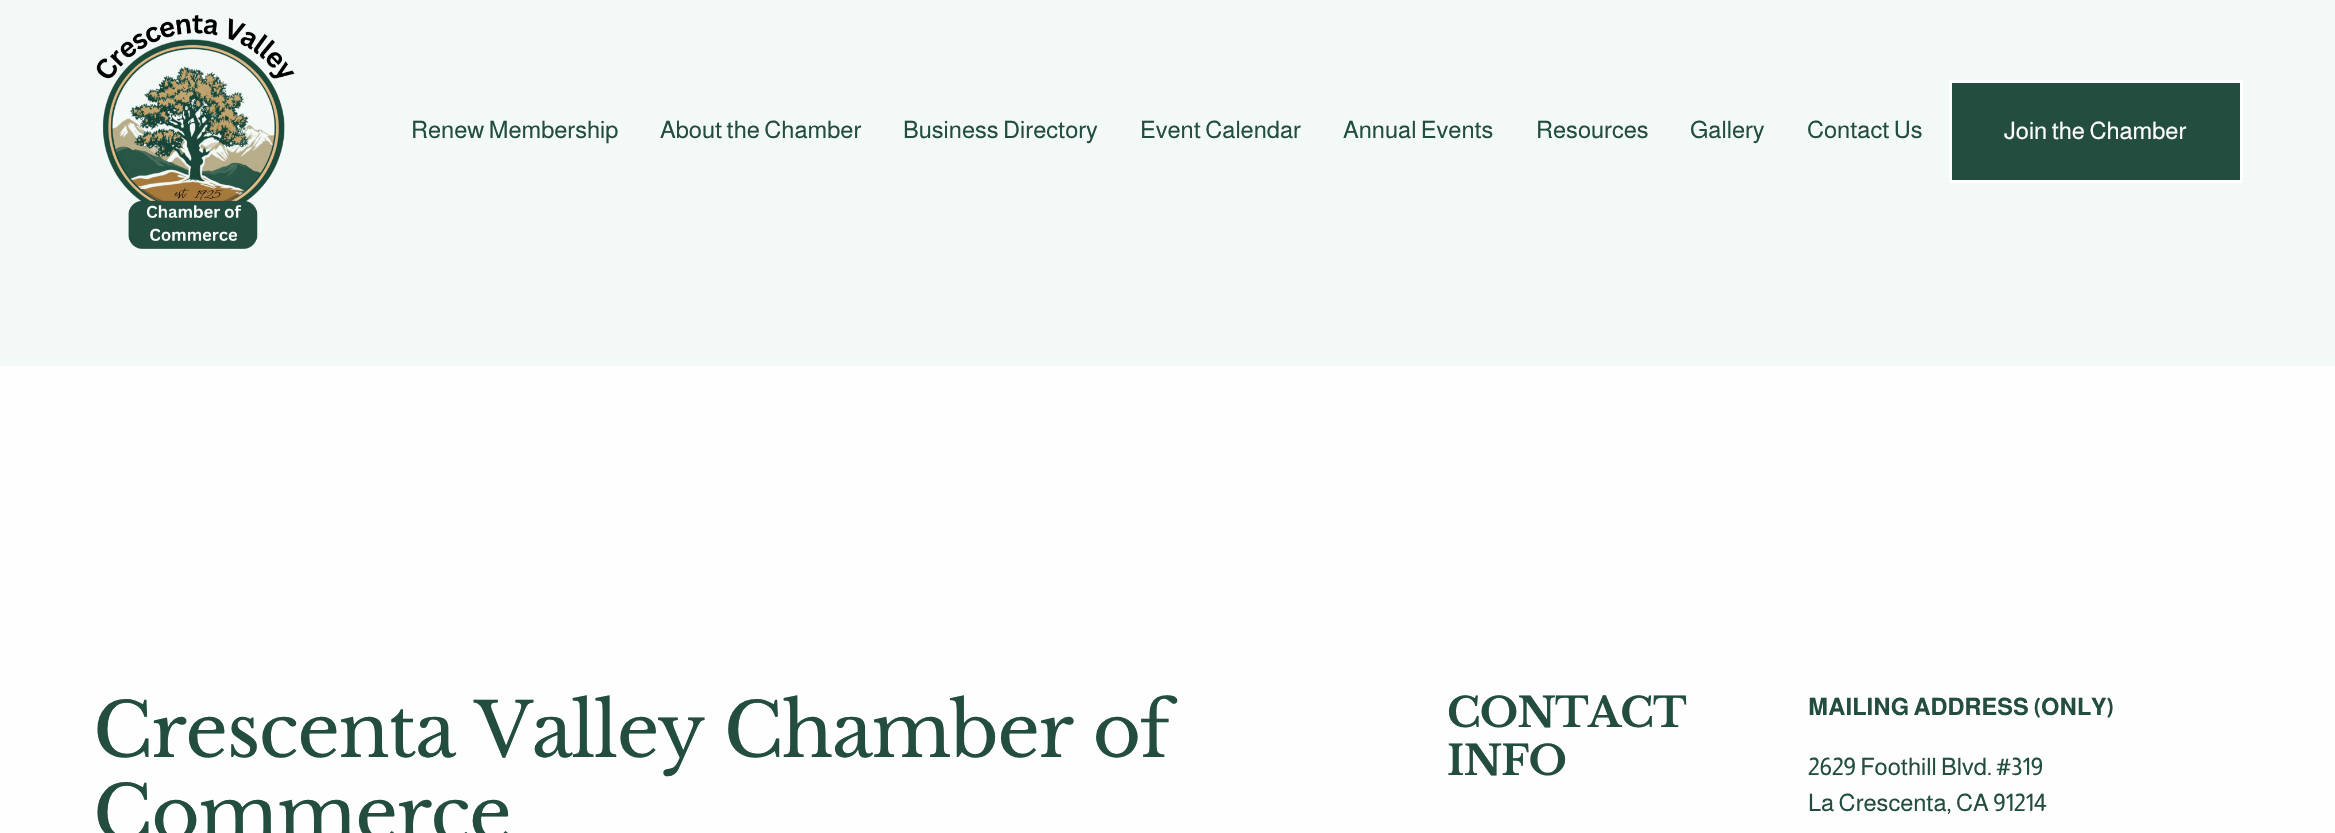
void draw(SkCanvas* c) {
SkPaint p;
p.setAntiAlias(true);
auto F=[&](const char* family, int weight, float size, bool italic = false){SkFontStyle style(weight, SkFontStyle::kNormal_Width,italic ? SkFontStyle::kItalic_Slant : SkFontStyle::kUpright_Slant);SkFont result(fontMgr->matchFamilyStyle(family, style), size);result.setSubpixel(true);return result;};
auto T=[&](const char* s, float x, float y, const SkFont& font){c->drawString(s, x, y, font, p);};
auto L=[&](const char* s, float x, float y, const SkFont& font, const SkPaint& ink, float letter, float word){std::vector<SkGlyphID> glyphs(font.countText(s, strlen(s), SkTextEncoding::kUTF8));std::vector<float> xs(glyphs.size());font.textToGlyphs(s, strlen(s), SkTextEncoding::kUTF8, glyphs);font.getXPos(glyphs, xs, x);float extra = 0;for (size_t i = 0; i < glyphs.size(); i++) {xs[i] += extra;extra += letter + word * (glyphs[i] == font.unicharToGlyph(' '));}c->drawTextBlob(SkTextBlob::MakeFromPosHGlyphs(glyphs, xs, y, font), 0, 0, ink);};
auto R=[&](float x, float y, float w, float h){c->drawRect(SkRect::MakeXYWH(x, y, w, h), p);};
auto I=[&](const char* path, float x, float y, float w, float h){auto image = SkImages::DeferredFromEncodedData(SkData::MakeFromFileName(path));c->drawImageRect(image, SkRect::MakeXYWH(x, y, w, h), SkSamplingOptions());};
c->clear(0xfff3f9f6);
I("1.png",96,15,199,234);
auto f1 = F("Almarai",400,24);
p.setColor(0xff234e3f);
T("Renew Membership",411,138,f1);
T("About the Chamber",660,138,f1);
T("Business Directory",903,138,f1);
T("Event Calendar",1140,138,f1);
T("Annual Events",1343,138,f1);
T("Resources",1536,138,f1);
T("Gallery",1690,138,f1);
T("Contact Us",1807,138,f1);
c->drawRect(SkRect::MakeXYWH(1950.5,81.5,291,100),p);
p.setStroke(true);
p.setStrokeWidth(3);
p.setColor(0xffffffff);
c->drawRect(SkRect::MakeXYWH(1950.5,81.5,291,100),p);
p.setStroke(false);
T("Join the Chamber",2004,139,f1);
p.setColor(0xfffefefe);
R(0,366,2335,467);
auto f2 = F("Libre Baskerville",400,74.5);
p.setColor(0xff234e3f);
L("Crescenta Valley Chamber of",93,757,f2,p,-1.5,0);
L("Commerce",93,840,f2,p,-1.5,0);
auto f3 = F("Libre Baskerville",700,40.75);
L("CONTACT",1447,727,f3,p,-.75,0);
L("INFO",1447,775,f3,p,-.75,0);
auto f4 = F("Almarai",700,24);
T("MAILING ADDRESS (ONLY)",1808,715,f4);
T("2629 Foothill Blvd. #319",1808,775,f1);
T("La Crescenta, CA 91214",1808,811,f1);
}
